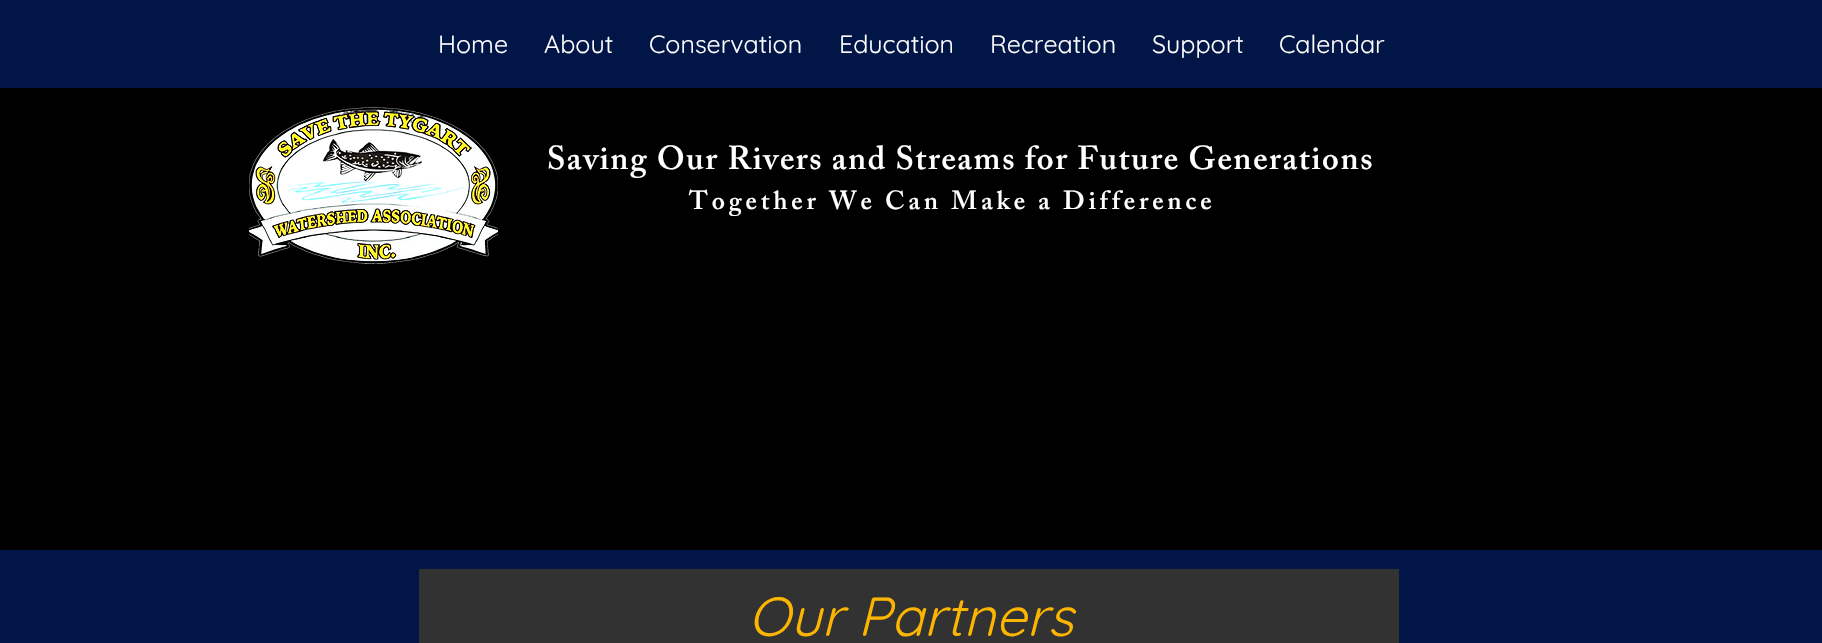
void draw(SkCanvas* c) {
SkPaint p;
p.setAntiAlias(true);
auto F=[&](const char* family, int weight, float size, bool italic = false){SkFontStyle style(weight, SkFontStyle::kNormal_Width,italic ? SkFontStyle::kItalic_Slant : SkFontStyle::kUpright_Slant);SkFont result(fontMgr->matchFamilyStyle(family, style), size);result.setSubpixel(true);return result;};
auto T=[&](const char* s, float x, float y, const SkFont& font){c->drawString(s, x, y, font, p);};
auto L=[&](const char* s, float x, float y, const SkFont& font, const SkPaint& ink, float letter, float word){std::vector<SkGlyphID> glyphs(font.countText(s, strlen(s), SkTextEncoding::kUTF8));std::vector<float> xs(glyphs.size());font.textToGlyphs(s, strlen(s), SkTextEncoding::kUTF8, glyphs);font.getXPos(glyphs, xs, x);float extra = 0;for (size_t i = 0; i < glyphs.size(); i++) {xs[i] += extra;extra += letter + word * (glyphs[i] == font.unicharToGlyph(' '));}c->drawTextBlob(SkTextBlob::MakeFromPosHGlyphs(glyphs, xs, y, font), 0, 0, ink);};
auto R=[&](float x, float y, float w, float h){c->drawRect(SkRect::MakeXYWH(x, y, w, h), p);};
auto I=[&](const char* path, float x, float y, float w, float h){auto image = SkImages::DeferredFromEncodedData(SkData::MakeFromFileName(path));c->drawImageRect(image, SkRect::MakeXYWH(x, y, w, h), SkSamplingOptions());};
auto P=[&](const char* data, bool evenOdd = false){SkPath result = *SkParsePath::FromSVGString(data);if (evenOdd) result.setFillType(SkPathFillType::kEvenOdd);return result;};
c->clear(0xff011546);
auto f1 = F("Quicksand",400,25);
p.setColor(0xffffffff);
T("Home",438,53,f1);
T("About",544,53,f1);
T("Conservation",649,53,f1);
T("Education",839,53,f1);
T("Recreation",990,53,f1);
T("Support",1152,53,f1);
T("Calendar",1279,53,f1);
p.setColor(0xff000000);
R(0,88,1822,462);
p.setColor(0xffffffff);
c->drawOval(SkRect::MakeXYWH(269,116,210,142),p);
p.setStroke(true);
p.setStrokeWidth(6);
p.setColor(0xff011546);
c->drawPath(P("M374 119c56.5 0 102 30.5 102 68c0 37.5-45.5 68-102 68c-56.5 0-102-30.5-102-68c0-37.5 45.5-68 102-68z"),p);
I("1.png",249,106,249,158);
auto f2 = F("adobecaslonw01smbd",600,33);
p.setStroke(false);
p.setColor(0xffffffff);
L("Saving Our Rivers and Streams for Future Generations",547,169,f2,p,1.65,0);
auto f3 = F("adobecaslonw01smbd",600,26);
L("Together We Can Make a Difference",689,209,f3,p,3.9,0);
p.setColor(0xff323232);
R(419,569,980,74);
auto f4 = F("Quicksand",400,55,true);
p.setColor(0xfffcb500);
T("Our Partners",748,636,f4);
}
